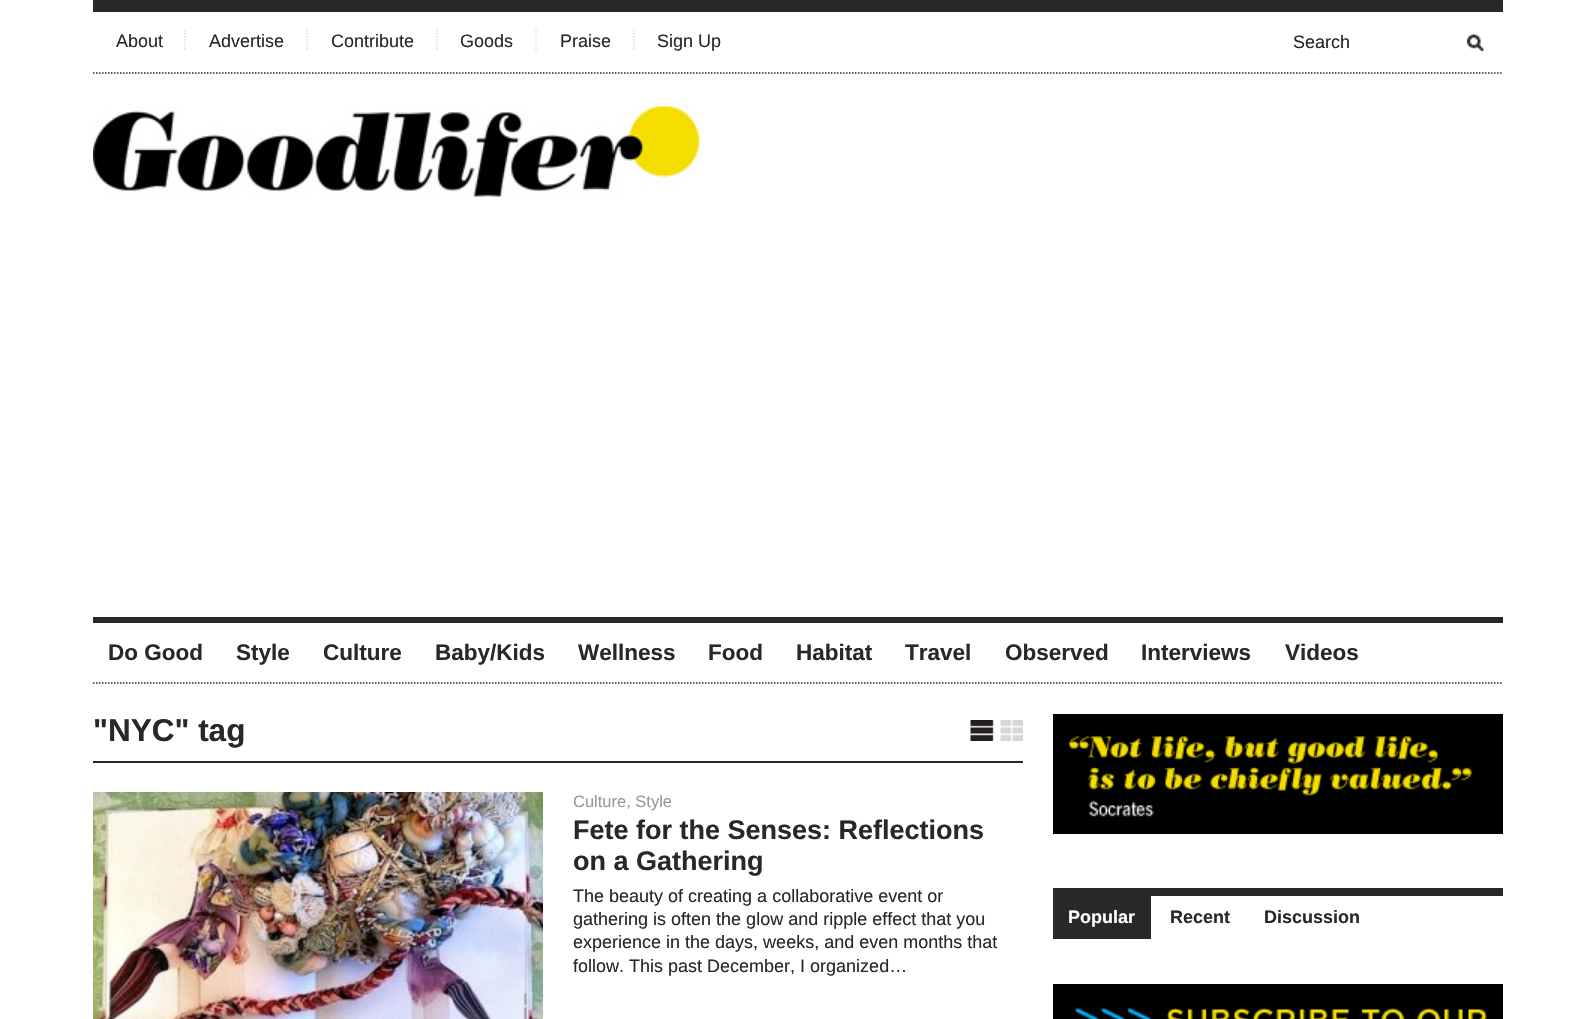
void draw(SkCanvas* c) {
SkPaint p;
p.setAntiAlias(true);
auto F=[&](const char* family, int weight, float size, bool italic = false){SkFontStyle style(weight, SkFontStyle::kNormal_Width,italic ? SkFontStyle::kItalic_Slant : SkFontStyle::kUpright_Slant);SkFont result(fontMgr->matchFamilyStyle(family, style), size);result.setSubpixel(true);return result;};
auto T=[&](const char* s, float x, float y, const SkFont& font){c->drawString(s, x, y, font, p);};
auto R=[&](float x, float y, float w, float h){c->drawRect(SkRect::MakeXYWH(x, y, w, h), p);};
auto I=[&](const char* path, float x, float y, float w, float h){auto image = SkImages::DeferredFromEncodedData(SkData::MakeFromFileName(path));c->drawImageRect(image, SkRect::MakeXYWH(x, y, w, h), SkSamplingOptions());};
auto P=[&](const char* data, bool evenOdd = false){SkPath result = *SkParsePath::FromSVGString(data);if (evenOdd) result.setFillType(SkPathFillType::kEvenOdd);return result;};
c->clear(0xffffffff);
p.setColor(0xff282828);
R(93,0,1410,12);
p.setStroke(true);
p.setStrokeWidth(1.5);
p.setPathEffect(SkDashPathEffect::Make({{1.5f,1.5f}}, 0));
c->drawPath(P("M93 73h1410"),p);
p.setPathEffect(nullptr);
auto f1 = F("Liberation Sans",400,18);
p.setStroke(false);
T("About",116,47,f1);
p.setStroke(true);
p.setColor(0xffdddddd);
p.setPathEffect(SkDashPathEffect::Make({{1.5f,1.5f}}, 0));
c->drawPath(P("M185 30v21"),p);
p.setPathEffect(nullptr);
p.setStroke(false);
p.setColor(0xff282828);
T("Advertise",209,47,f1);
p.setStroke(true);
p.setColor(0xffdddddd);
p.setPathEffect(SkDashPathEffect::Make({{1.5f,1.5f}}, 0));
c->drawPath(P("M307 30v21"),p);
p.setPathEffect(nullptr);
p.setStroke(false);
p.setColor(0xff282828);
T("Contribute",331,47,f1);
p.setStroke(true);
p.setColor(0xffdddddd);
p.setPathEffect(SkDashPathEffect::Make({{1.5f,1.5f}}, 0));
c->drawPath(P("M437 30v21"),p);
p.setPathEffect(nullptr);
p.setStroke(false);
p.setColor(0xff282828);
T("Goods",460,47,f1);
p.setStroke(true);
p.setColor(0xffdddddd);
p.setPathEffect(SkDashPathEffect::Make({{1.5f,1.5f}}, 0));
c->drawPath(P("M536 30v21"),p);
p.setPathEffect(nullptr);
p.setStroke(false);
p.setColor(0xff282828);
T("Praise",560,47,f1);
p.setStroke(true);
p.setColor(0xffdddddd);
p.setPathEffect(SkDashPathEffect::Make({{1.5f,1.5f}}, 0));
c->drawPath(P("M634 30v21"),p);
p.setPathEffect(nullptr);
p.setStroke(false);
p.setColor(0xff282828);
T("Sign Up",657,47,f1);
T("Search",1293,48,f1);
I("1.png",1467,34,17,17);
I("2.png",93,103,608,94);
R(93,617,1410,6);
p.setStroke(true);
p.setPathEffect(SkDashPathEffect::Make({{1.5f,1.5f}}, 0));
c->drawPath(P("M93 683h1410"),p);
p.setPathEffect(nullptr);
auto f2 = F("Liberation Sans",700,22.5);
p.setStroke(false);
T("Do Good",108,660,f2);
T("Style",236,660,f2);
T("Culture",323,660,f2);
T("Baby/Kids",435,660,f2);
T("Wellness",578,660,f2);
T("Food",708,660,f2);
T("Habitat",796,660,f2);
T("Travel",905,660,f2);
T("Observed",1005,660,f2);
T("Interviews",1141,660,f2);
T("Videos",1285,660,f2);
R(93,761,930,2);
auto f3 = F("Liberation Sans",700,31.5);
T("\"NYC\" tag",93,741,f3);
I("3.png",970,720,53,21);
I("4.png",93,792,450,227);
auto f4 = F("Liberation Sans",400,16.5);
p.setColor(0xff999999);
T("Culture, Style",573,807,f4);
auto f5 = F("Liberation Sans",700,27);
p.setColor(0xff282828);
T("Fete for the Senses: Reflections",573,839,f5);
T("on a Gathering",573,870,f5);
T("The beauty of creating a collaborative event or",573,902,f1);
T("gathering is often the glow and ripple effect that you",573,925,f1);
T("experience in the days, weeks, and even months that",573,948,f1);
T("follow. This past December, I organized…",573,972,f1);
I("5.png",1053,714,450,120);
R(1053,888,450,8);
R(1053,896,98,43);
auto f6 = F("Liberation Sans",700,18);
p.setColor(0xffffffff);
T("Popular",1068,923,f6);
p.setColor(0xff282828);
T("Recent",1170,923,f6);
T("Discussion",1264,923,f6);
I("6.png",1053,984,450,35);
}
